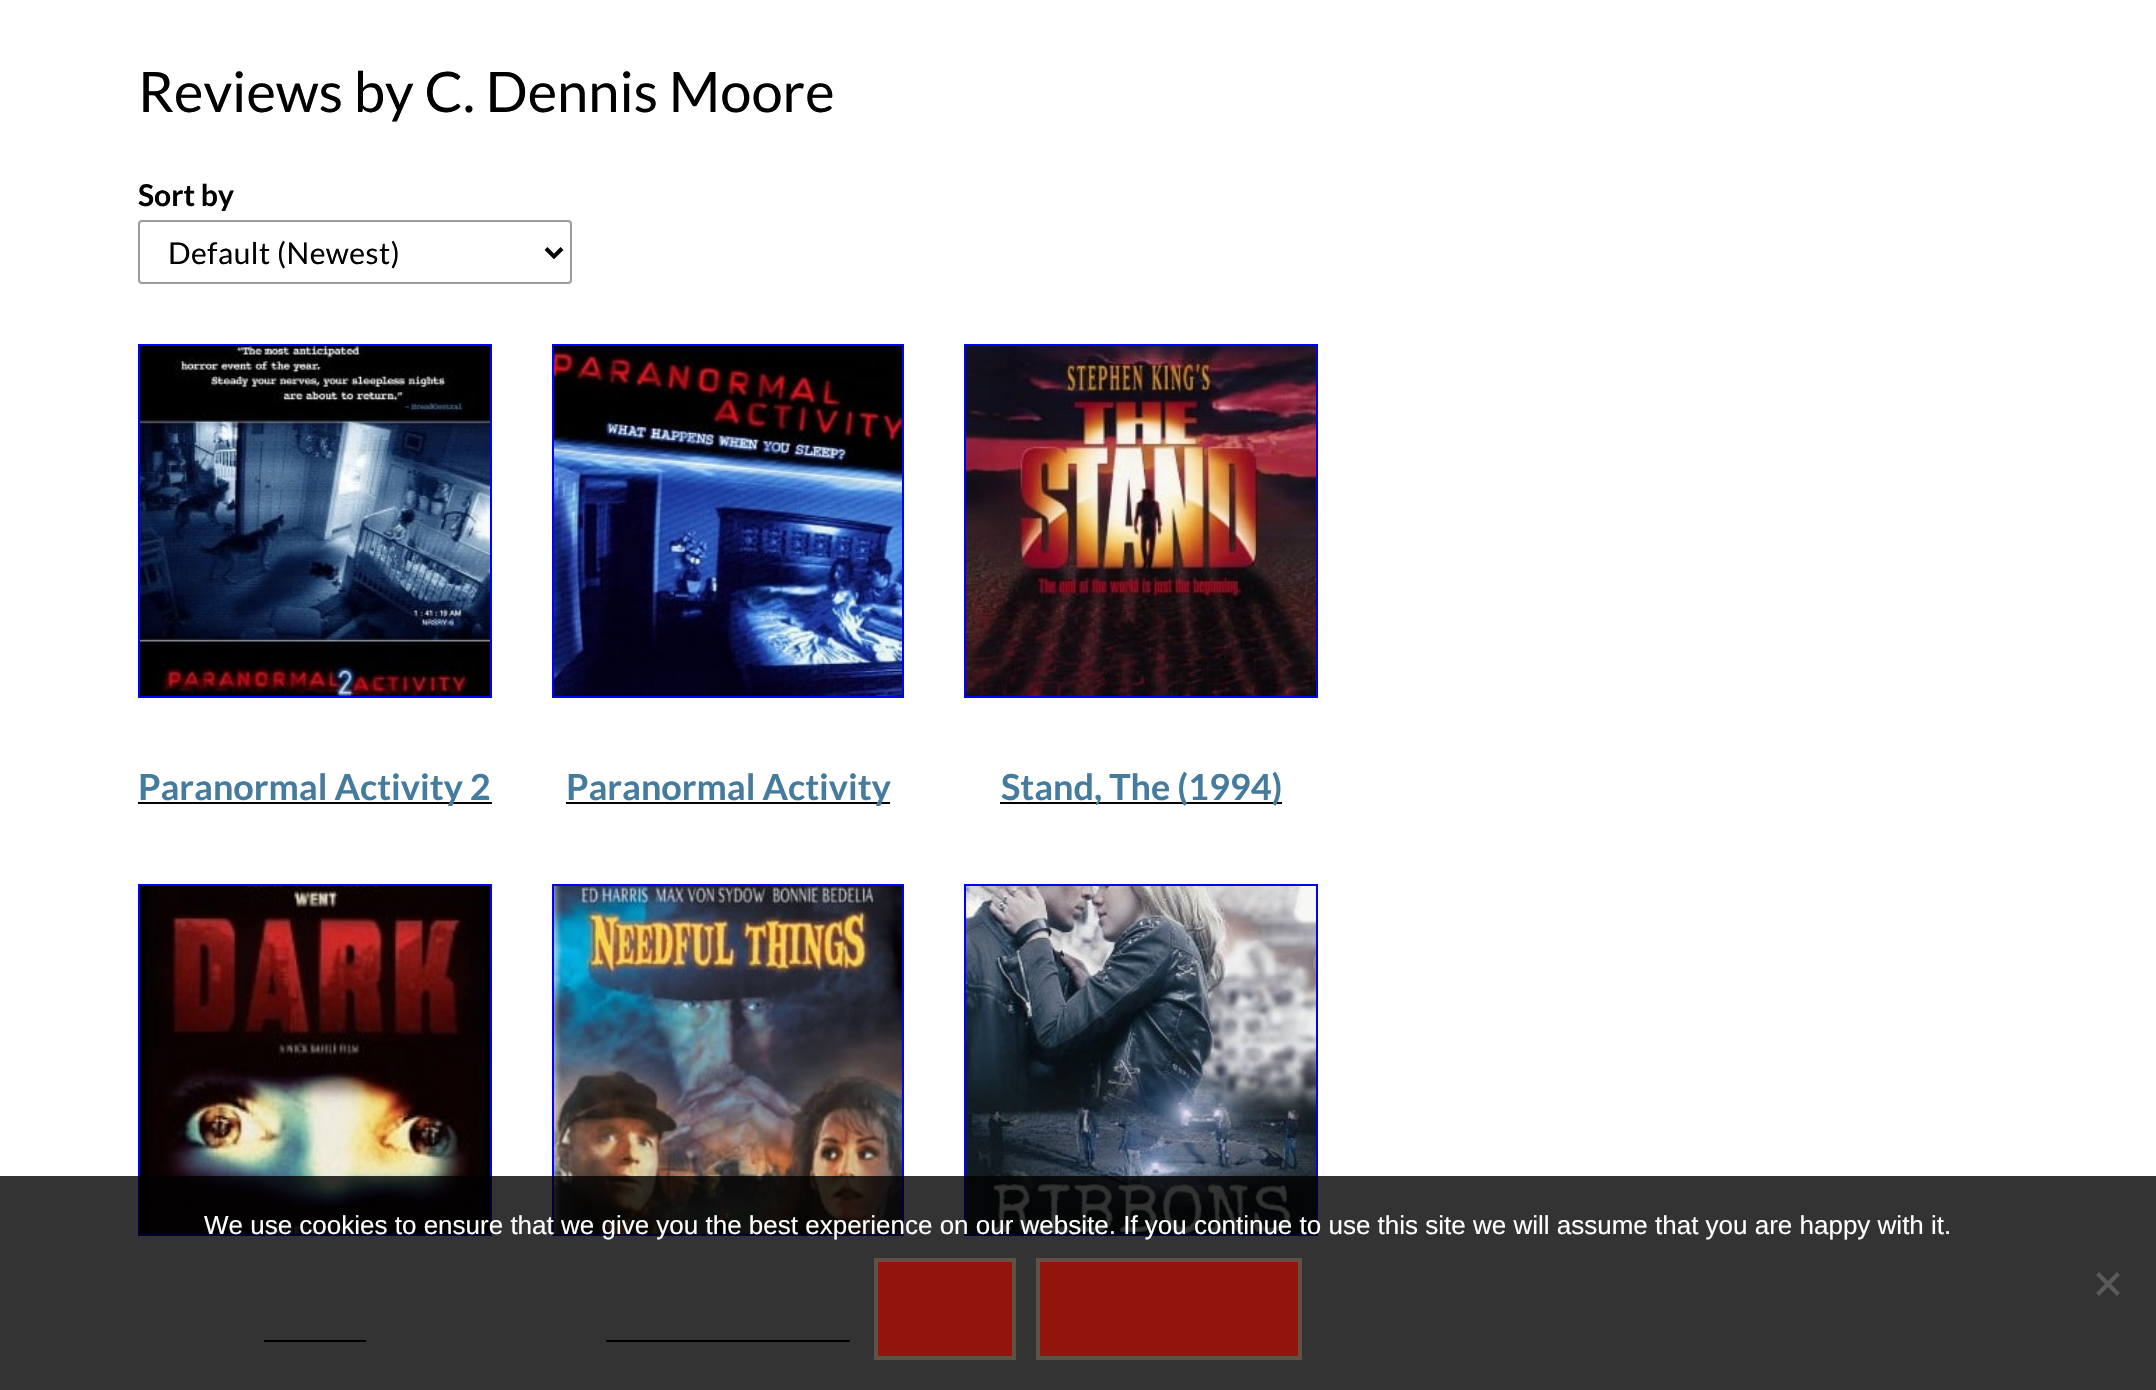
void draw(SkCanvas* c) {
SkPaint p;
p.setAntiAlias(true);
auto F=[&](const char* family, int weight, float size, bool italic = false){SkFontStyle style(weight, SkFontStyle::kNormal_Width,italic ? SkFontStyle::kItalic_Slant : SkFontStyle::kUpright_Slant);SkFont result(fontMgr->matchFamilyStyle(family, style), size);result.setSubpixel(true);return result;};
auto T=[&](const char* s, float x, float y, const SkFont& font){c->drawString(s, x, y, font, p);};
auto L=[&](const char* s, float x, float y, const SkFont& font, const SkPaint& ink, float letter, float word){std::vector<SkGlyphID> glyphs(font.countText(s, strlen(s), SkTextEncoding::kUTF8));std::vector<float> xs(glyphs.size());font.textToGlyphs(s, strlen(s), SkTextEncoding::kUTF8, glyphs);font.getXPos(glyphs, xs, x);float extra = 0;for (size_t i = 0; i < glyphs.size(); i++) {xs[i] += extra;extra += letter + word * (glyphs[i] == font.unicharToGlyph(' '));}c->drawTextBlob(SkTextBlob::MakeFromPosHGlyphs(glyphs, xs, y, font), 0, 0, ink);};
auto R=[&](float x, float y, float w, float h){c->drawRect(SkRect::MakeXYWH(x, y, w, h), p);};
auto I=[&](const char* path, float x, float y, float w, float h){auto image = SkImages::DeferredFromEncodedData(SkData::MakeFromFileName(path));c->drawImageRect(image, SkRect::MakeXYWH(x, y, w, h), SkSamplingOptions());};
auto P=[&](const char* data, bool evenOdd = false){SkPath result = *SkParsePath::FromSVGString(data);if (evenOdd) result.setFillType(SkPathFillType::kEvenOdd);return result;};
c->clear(0xffffffff);
auto f1 = F("Lato",400,56);
p.setColor(0xff000000);
T("Reviews by C. Dennis Moore",138,112,f1);
auto f2 = F("Lato",700,30);
T("Sort by",138,206,f2);
p.setStroke(true);
p.setStrokeWidth(2);
p.setColor(0xff9d9d9d);
c->drawRoundRect(SkRect::MakeXYWH(139,221,432,62),3,3,p);
p.setStrokeWidth(4);
p.setColor(0xff030303);
c->drawPath(P("M546 248.5l8 8l8-8"),p);
auto f3 = F("Lato",400,30);
p.setStroke(false);
p.setColor(0xff000000);
L("Default (Newest)",168,264,f3,p,.5,0);
I("1.png",140,346,350,350);
p.setStroke(true);
p.setStrokeWidth(2);
p.setColor(0xff0000ff);
c->drawRect(SkRect::MakeXYWH(139,345,352,352),p);
p.setStroke(false);
p.setColor(0xff030303);
R(138,802,354,2);
auto f4 = F("Lato",700,36);
p.setColor(0xff457b9d);
T("Paranormal Activity 2",138,800,f4);
I("2.png",554,346,348,350);
p.setStroke(true);
p.setColor(0xff0000ff);
c->drawRect(SkRect::MakeXYWH(553,345,350,352),p);
p.setStroke(false);
p.setColor(0xff030303);
R(566,802,324,2);
p.setColor(0xff457b9d);
T("Paranormal Activity",566,800,f4);
I("3.png",966,346,350,350);
p.setStroke(true);
p.setColor(0xff0000ff);
c->drawRect(SkRect::MakeXYWH(965,345,352,352),p);
p.setStroke(false);
p.setColor(0xff030303);
R(1000,802,282,2);
p.setColor(0xff457b9d);
T("Stand, The (1994)",1001,800,f4);
I("4.png",140,886,350,348);
p.setStroke(true);
p.setColor(0xff0000ff);
c->drawRect(SkRect::MakeXYWH(139,885,352,350),p);
p.setStroke(false);
p.setColor(0xff030303);
R(264,1340,102,2);
I("5.png",554,886,348,348);
p.setStroke(true);
p.setColor(0xff0000ff);
c->drawRect(SkRect::MakeXYWH(553,885,350,350),p);
p.setStroke(false);
p.setColor(0xff030303);
R(606,1340,244,2);
I("6.png",966,886,350,348);
p.setStroke(true);
p.setColor(0xff0000ff);
c->drawRect(SkRect::MakeXYWH(965,885,352,350),p);
p.setStroke(false);
p.setColor(0xcc000000);
R(0,1176,2156,214);
auto f5 = F("Liberation Sans",400,26);
p.setColor(0xffffffff);
T("We use cookies to ensure that we give you the best experience on our website. If you continue to use this site we will assume that you are happy with it.",204,1234,f5);
p.setColor(0xff92140c);
c->drawRect(SkRect::MakeXYWH(876,1260,138,98),p);
p.setStroke(true);
p.setStrokeWidth(4);
p.setColor(0xff5c5346);
c->drawRect(SkRect::MakeXYWH(876,1260,138,98),p);
p.setStroke(false);
p.setColor(0xff92140c);
c->drawRect(SkRect::MakeXYWH(1038,1260,262,98),p);
p.setStroke(true);
p.setColor(0xff5c5346);
c->drawRect(SkRect::MakeXYWH(1038,1260,262,98),p);
p.setStroke(false);
p.setColor(0xff5a5a5a);
c->drawPath(P("M2117 1272l3 3l-21 21l-3-3z"),p);
c->drawPath(P("M2096 1275l3-3l21 21l-3 3z"),p);
}
